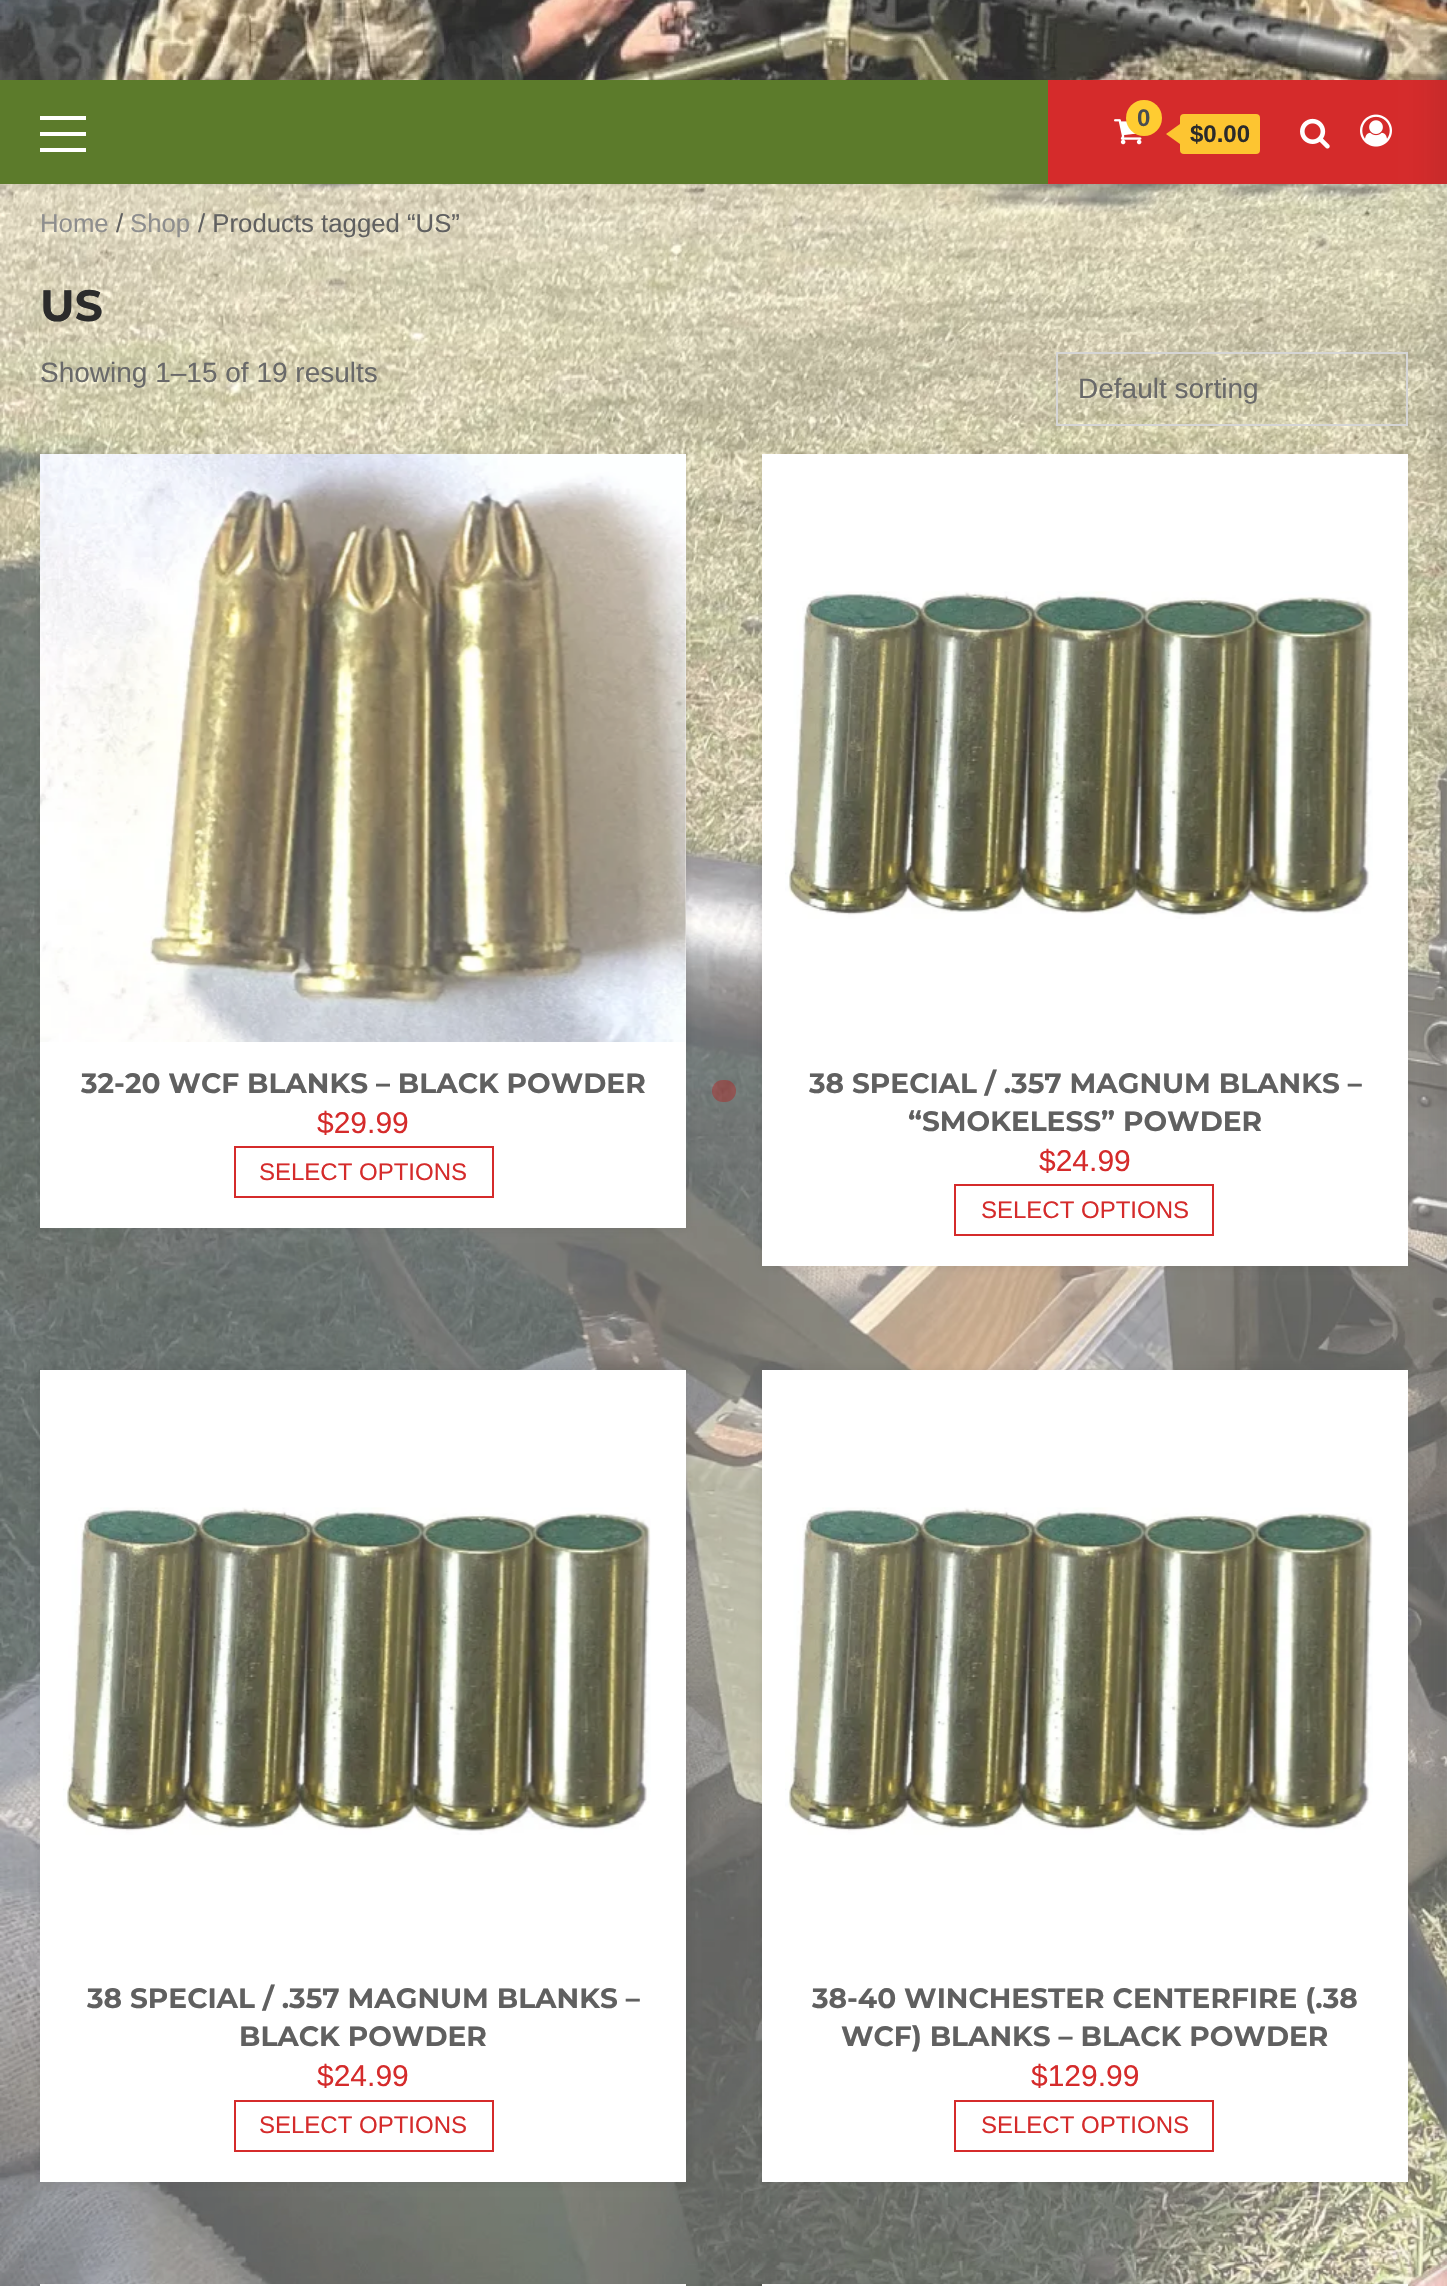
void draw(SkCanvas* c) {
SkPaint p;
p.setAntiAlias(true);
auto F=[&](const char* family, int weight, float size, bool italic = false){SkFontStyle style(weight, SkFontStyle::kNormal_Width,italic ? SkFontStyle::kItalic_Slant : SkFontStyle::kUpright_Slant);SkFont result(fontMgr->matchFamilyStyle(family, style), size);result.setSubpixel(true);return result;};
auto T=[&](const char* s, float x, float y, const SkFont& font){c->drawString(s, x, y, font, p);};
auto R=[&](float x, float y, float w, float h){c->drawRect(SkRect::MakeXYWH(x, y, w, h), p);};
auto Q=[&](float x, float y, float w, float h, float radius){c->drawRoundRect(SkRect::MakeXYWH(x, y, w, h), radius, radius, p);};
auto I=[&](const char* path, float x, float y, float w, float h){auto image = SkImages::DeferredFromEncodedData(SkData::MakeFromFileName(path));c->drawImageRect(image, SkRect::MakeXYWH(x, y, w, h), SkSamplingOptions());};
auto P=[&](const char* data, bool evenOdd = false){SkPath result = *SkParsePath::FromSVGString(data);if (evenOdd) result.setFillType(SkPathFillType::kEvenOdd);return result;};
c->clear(0xffffffff);
I("1.png",0,184,1447,2102);
I("2.png",0,0,1447,80);
p.setColor(0x4d2b2b2b);
p.setMaskFilter(SkMaskFilter::MakeBlur(kNormal_SkBlurStyle, 5));
c->drawRect(SkRect::MakeXYWH(8,92,1432,88),p);
p.setMaskFilter(nullptr);
p.setColor(0xff5c7b2b);
R(0,80,1048,104);
p.setColor(0xffffffff);
R(40,132,46,4);
R(40,116,46,4);
R(40,148,46,4);
p.setColor(0xffd52b2b);
R(1048,80,399,104);
I("3.png",1114,119,28,26);
p.setColor(0xffffcc31);
c->drawCircle(1144,118,18,p);
auto f1 = F("Liberation Sans",700,24);
p.setColor(0xff484d51);
T("0",1137,126,f1);
p.setColor(0xfffdc531);
Q(1180,114,80,40,4);
c->drawPath(P("M1180 124v20l-14-10z"),p);
p.setColor(0xff2b2b2b);
T("$0.00",1190,142,f1);
I("4.png",1300,118,30,31);
I("5.png",1360,114,32,33);
auto f2 = F("Liberation Sans",400,25.75);
p.setColor(0xff8e8e8e);
T("Home",40,232,f2);
p.setColor(0xff606060);
T("/",116,232,f2);
p.setColor(0xff8e8e8e);
T("Shop",130,232,f2);
p.setColor(0xff606060);
T("/ Products tagged “US”",198,232,f2);
auto f3 = F("Montserrat",700,44);
p.setColor(0xff2b2b2b);
T("US",40,321,f3);
auto f4 = F("Liberation Sans",400,28);
p.setColor(0xff696969);
T("Showing 1–15 of 19 results",40,382,f4);
p.setStroke(true);
p.setStrokeWidth(2);
p.setColor(0xffd5d5d5);
c->drawRect(SkRect::MakeXYWH(1057,353,350,72),p);
p.setStroke(false);
p.setColor(0xff696969);
T("Default sorting",1078,398,f4);
p.setColor(0x1a2b2b2b);
p.setMaskFilter(SkMaskFilter::MakeBlur(kNormal_SkBlurStyle, 5));
c->drawRect(SkRect::MakeXYWH(40,454,646,774),p);
p.setMaskFilter(nullptr);
p.setColor(0xffffffff);
R(40,454,646,774);
I("6.png",40,454,646,588);
auto f5 = F("Montserrat",700,28);
p.setColor(0xff606060);
T("32-20 WCF BLANKS – BLACK POWDER",81,1093,f5);
auto f6 = F("Liberation Sans",400,30);
p.setColor(0xffd52b2b);
T("$29.99",317,1133,f6);
p.setStroke(true);
c->drawRect(SkRect::MakeXYWH(235,1147,258,50),p);
auto f7 = F("Liberation Sans",400,24);
p.setStroke(false);
T("SELECT OPTIONS",259,1180,f7);
p.setColor(0x1a2b2b2b);
p.setMaskFilter(SkMaskFilter::MakeBlur(kNormal_SkBlurStyle, 5));
c->drawRect(SkRect::MakeXYWH(762,454,646,812),p);
p.setMaskFilter(nullptr);
p.setColor(0xffffffff);
R(762,454,646,812);
I("7.png",785,591,588,328);
p.setColor(0xff606060);
T("38 SPECIAL / .357 MAGNUM BLANKS –",809,1093,f5);
T("“SMOKELESS” POWDER",908,1131,f5);
p.setColor(0xffd52b2b);
T("$24.99",1039,1171,f6);
p.setStroke(true);
c->drawRect(SkRect::MakeXYWH(955,1185,258,50),p);
p.setStroke(false);
T("SELECT OPTIONS",981,1218,f7);
p.setColor(0x1a2b2b2b);
p.setMaskFilter(SkMaskFilter::MakeBlur(kNormal_SkBlurStyle, 5));
c->drawRect(SkRect::MakeXYWH(40,1370,646,812),p);
p.setMaskFilter(nullptr);
p.setColor(0xffffffff);
R(40,1370,646,812);
I("8.png",63,1507,588,328);
p.setColor(0xff606060);
T("38 SPECIAL / .357 MAGNUM BLANKS –",87,2008,f5);
T("BLACK POWDER",239,2046,f5);
p.setColor(0xffd52b2b);
T("$24.99",317,2086,f6);
p.setStroke(true);
c->drawRect(SkRect::MakeXYWH(235,2101,258,50),p);
p.setStroke(false);
T("SELECT OPTIONS",259,2133,f7);
p.setColor(0x1a2b2b2b);
p.setMaskFilter(SkMaskFilter::MakeBlur(kNormal_SkBlurStyle, 5));
c->drawRect(SkRect::MakeXYWH(762,1370,646,812),p);
p.setMaskFilter(nullptr);
p.setColor(0xffffffff);
R(762,1370,646,812);
I("7.png",785,1507,588,328);
p.setColor(0xff606060);
T("38-40 WINCHESTER CENTERFIRE (.38",812,2008,f5);
T("WCF) BLANKS – BLACK POWDER",841,2046,f5);
p.setColor(0xffd52b2b);
T("$129.99",1031,2086,f6);
p.setStroke(true);
c->drawRect(SkRect::MakeXYWH(955,2101,258,50),p);
p.setStroke(false);
T("SELECT OPTIONS",981,2133,f7);
p.setColor(0xffffffff);
R(40,2284,646,2);
p.setColor(0x1a2b2b2b);
p.setMaskFilter(SkMaskFilter::MakeBlur(kNormal_SkBlurStyle, 5));
c->drawRect(SkRect::MakeXYWH(762,2284,646,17),p);
p.setMaskFilter(nullptr);
p.setColor(0xffffffff);
R(762,2284,646,2);
p.setColor(0x1a2b2b2b);
p.setMaskFilter(SkMaskFilter::MakeBlur(kNormal_SkBlurStyle, 15));
c->drawRect(SkRect::MakeXYWH(1434,0,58,2286),p);
p.setMaskFilter(nullptr);
p.setColor(0x2bcc0000);
Q(712,1080,24,22,11);
p.setColor(0x1fcc0000);
Q(712,1080,24,22,11);
p.setColor(0x12cc0000);
Q(712,1080,24,22,11);
}
